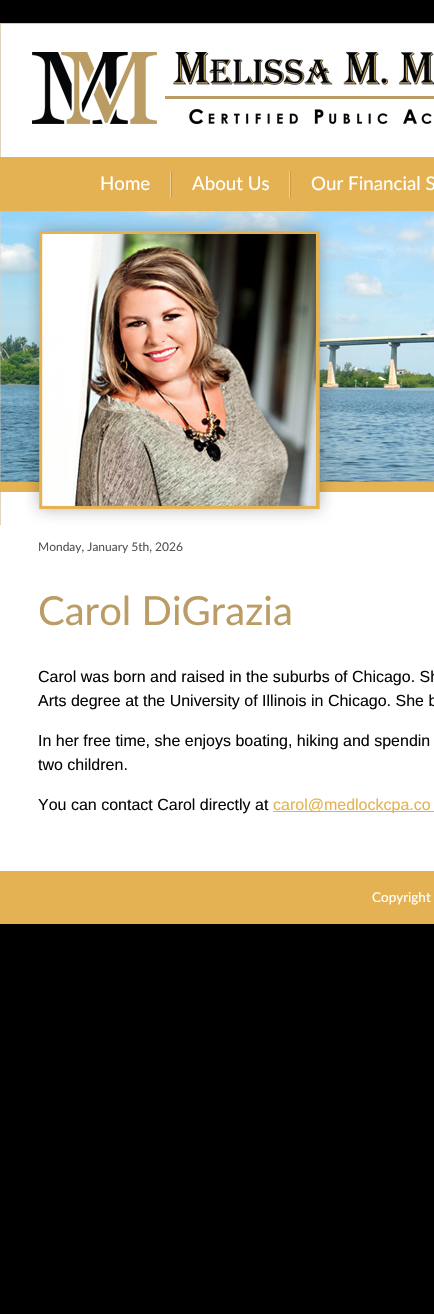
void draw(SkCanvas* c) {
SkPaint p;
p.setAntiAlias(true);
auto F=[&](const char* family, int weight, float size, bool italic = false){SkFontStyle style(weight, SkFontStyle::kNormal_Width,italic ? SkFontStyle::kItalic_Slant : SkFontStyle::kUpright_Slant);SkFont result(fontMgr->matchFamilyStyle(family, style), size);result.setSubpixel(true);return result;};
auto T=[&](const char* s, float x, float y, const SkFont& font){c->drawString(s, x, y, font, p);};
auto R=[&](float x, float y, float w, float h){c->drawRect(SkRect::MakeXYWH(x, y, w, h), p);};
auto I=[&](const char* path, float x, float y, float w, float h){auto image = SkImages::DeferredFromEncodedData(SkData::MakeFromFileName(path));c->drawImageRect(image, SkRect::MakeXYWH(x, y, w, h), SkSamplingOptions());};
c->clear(0xff000000);
p.setColor(0xffffffff);
R(0,525,434,346);
I("1.png",0,0,434,157);
p.setColor(0xffe5b253);
R(0,157,434,54);
auto f1 = F("Lato",400,18.75);
p.setColor(0xffffffff);
T("Home",100,190,f1);
I("2.png",170,171,2,27);
T("About Us",192,190,f1);
I("2.png",289,171,2,27);
T("Our Financial S",311,190,f1);
I("3.png",0,211,434,314);
auto f2 = F("Lato",400,12);
p.setColor(0xff555555);
T("Monday, January 5th, 2026",38,551,f2);
auto f3 = F("Lato",400,40);
p.setColor(0xffba9c64);
T("Carol DiGrazia",38,625,f3);
auto f4 = F("Liberation Sans",400,16);
p.setColor(0xff050708);
T("Carol was born and raised in the suburbs of Chicago. Sh",38,682,f4);
T("Arts degree at the University of Illinois in Chicago. She b",38,706,f4);
T("In her free time, she enjoys boating, hiking and spendin",38,746,f4);
T("two children.",38,770,f4);
T("You can contact Carol directly at",38,810,f4);
p.setColor(0xffe5b253);
R(273,811,161,1);
T("carol@medlockcpa.co",273,810,f4);
R(0,871,434,53);
auto f5 = F("Lato",400,13.5);
p.setColor(0xffffffff);
T("Copyright",372,902,f5);
}
